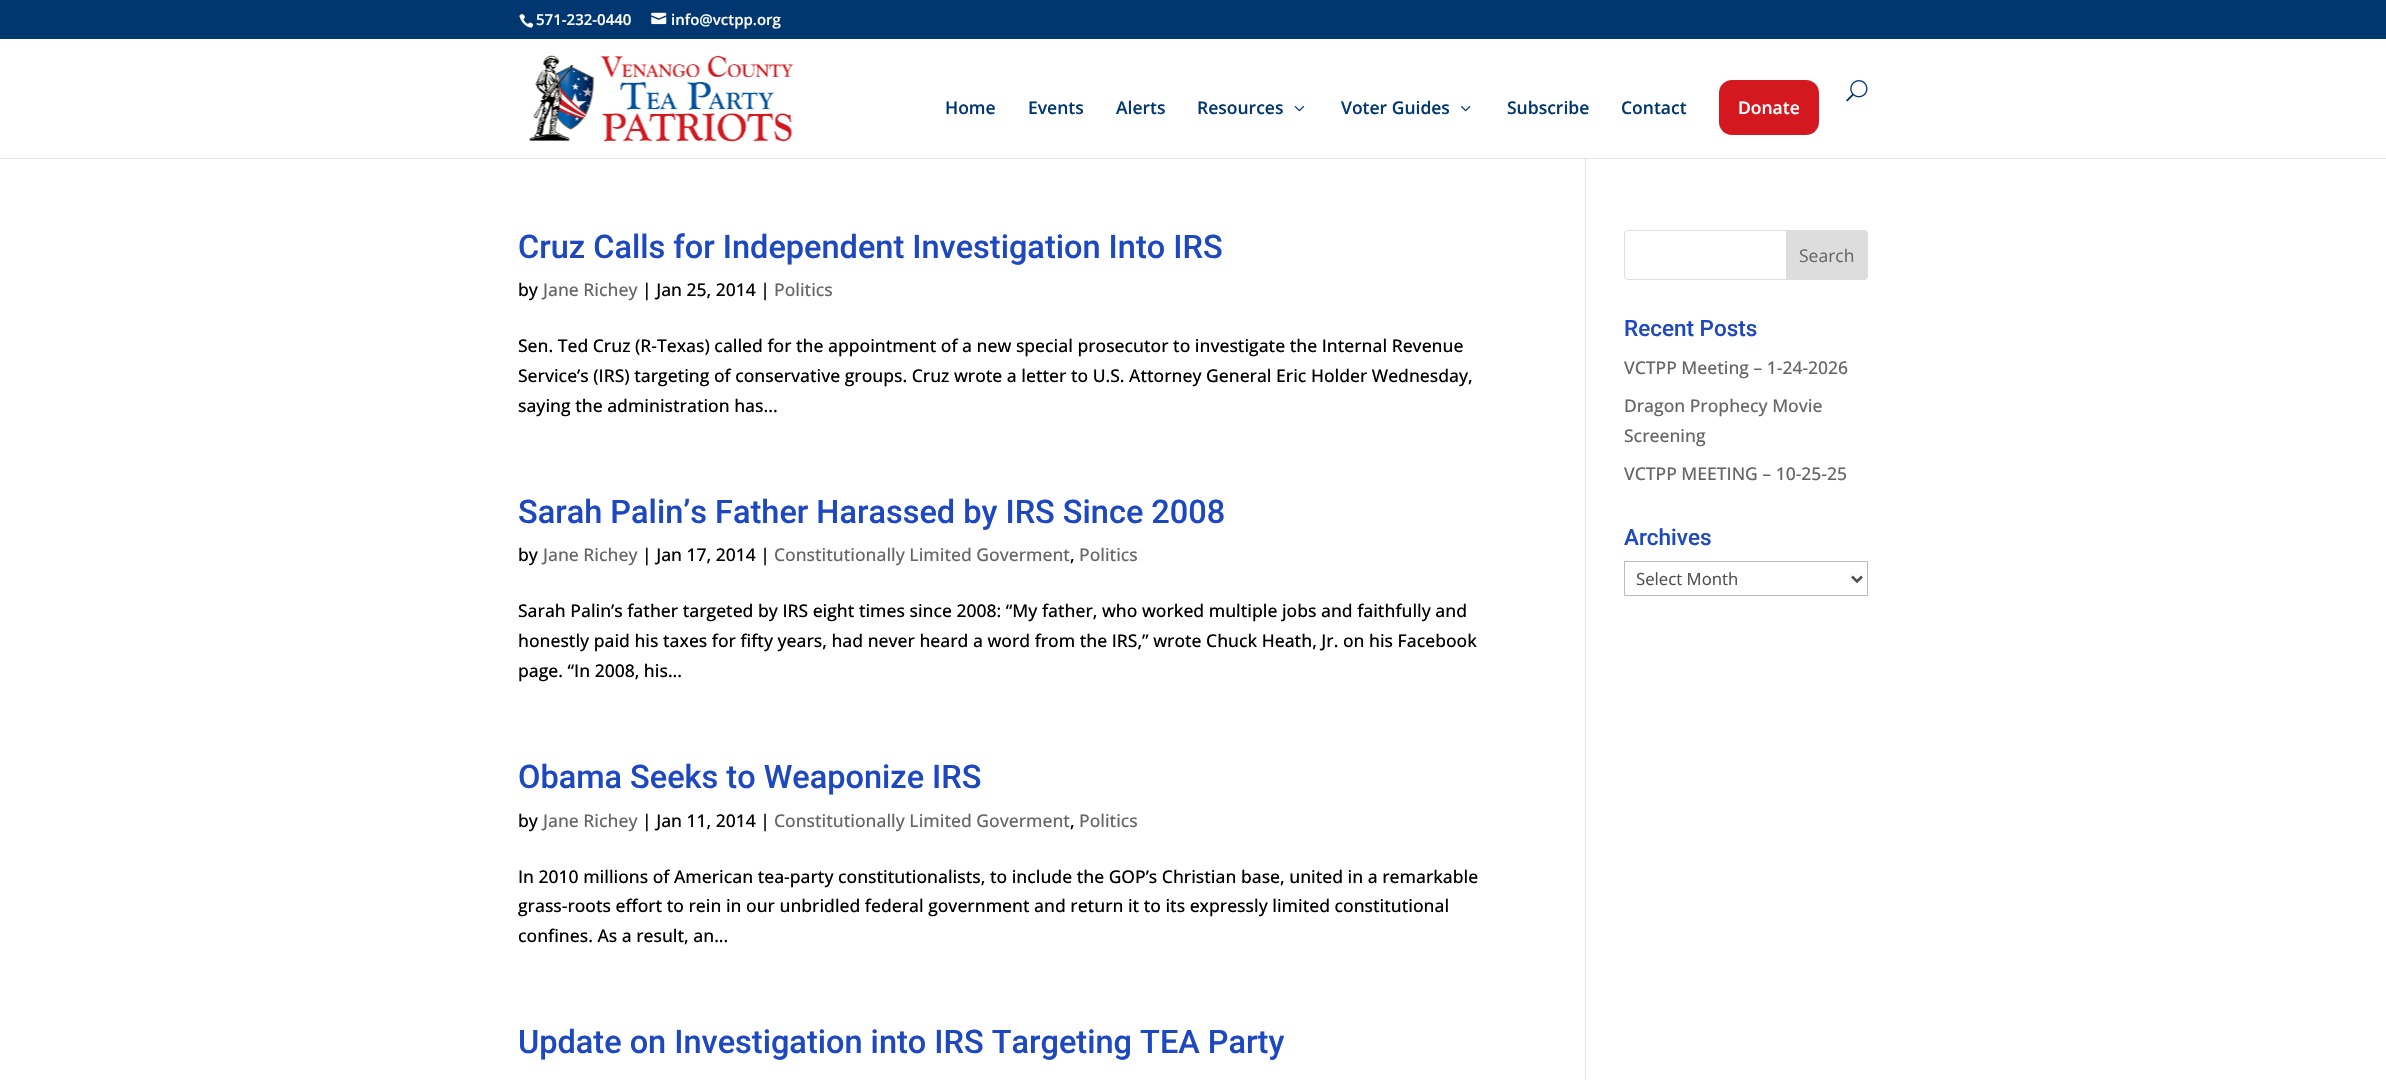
void draw(SkCanvas* c) {
SkPaint p;
p.setAntiAlias(true);
auto F=[&](const char* family, int weight, float size, bool italic = false){SkFontStyle style(weight, SkFontStyle::kNormal_Width,italic ? SkFontStyle::kItalic_Slant : SkFontStyle::kUpright_Slant);SkFont result(fontMgr->matchFamilyStyle(family, style), size);result.setSubpixel(true);return result;};
auto T=[&](const char* s, float x, float y, const SkFont& font){c->drawString(s, x, y, font, p);};
auto R=[&](float x, float y, float w, float h){c->drawRect(SkRect::MakeXYWH(x, y, w, h), p);};
auto Q=[&](float x, float y, float w, float h, float radius){c->drawRoundRect(SkRect::MakeXYWH(x, y, w, h), radius, radius, p);};
auto I=[&](const char* path, float x, float y, float w, float h){auto image = SkImages::DeferredFromEncodedData(SkData::MakeFromFileName(path));c->drawImageRect(image, SkRect::MakeXYWH(x, y, w, h), SkSamplingOptions());};
auto P=[&](const char* data, bool evenOdd = false){SkPath result = *SkParsePath::FromSVGString(data);if (evenOdd) result.setFillType(SkPathFillType::kEvenOdd);return result;};
c->clear(0xffffffff);
p.setColor(0xffe6e6e6);
R(0,158,2386,1);
p.setColor(0xff003770);
R(0,0,2386,39);
I("1.png",519,14,15,14);
auto f1 = F("Open Sans",600,15);
p.setColor(0xffffffff);
T("571-232-0440",536,25,f1);
I("2.png",651,12,16,13);
T("info@vctpp.org",671,25,f1);
I("3.png",529,55,265,87);
I("4.png",1846,80,22,22);
auto f2 = F("Open Sans",600,17.5);
p.setColor(0xff003770);
T("Home",945,114,f2);
T("Events",1028,114,f2);
T("Alerts",1116,114,f2);
T("Resources",1197,114,f2);
I("5.png",1294,106,10,6);
T("Voter Guides",1341,114,f2);
I("6.png",1461,106,10,6);
T("Subscribe",1507,114,f2);
T("Contact",1621,114,f2);
p.setColor(0xffd3181f);
Q(1719,80,100,55,13);
p.setColor(0xffffffff);
T("Donate",1738,114,f2);
p.setColor(0xffe2e2e2);
R(1585,158,1,922);
p.setColor(0xffcbcbcb);
R(1585,158,1,1);
auto f3 = F("Roboto",500,32.5);
p.setColor(0xff1d48c0);
T("Cruz Calls for Independent Investigation Into IRS",518,258,f3);
auto f4 = F("Open Sans",500,17.5);
p.setColor(0xff000000);
T("by",518,296,f4);
p.setColor(0xff666666);
T("Jane Richey",543,296,f4);
p.setColor(0xff000000);
T("| Jan 25, 2014 |",642,296,f4);
p.setColor(0xff666666);
T("Politics",774,296,f4);
p.setColor(0xff000000);
T("Sen. Ted Cruz (R-Texas) called for the appointment of a new special prosecutor to investigate the Internal Revenue",518,352,f4);
T("Service’s (IRS) targeting of conservative groups. Cruz wrote a letter to U.S. Attorney General Eric Holder Wednesday,",518,382,f4);
T("saying the administration has...",518,412,f4);
p.setColor(0xff1d48c0);
T("Sarah Palin’s Father Harassed by IRS Since 2008",518,523,f3);
p.setColor(0xff000000);
T("by",518,561,f4);
p.setColor(0xff666666);
T("Jane Richey",543,561,f4);
p.setColor(0xff000000);
T("| Jan 17, 2014 |",642,561,f4);
p.setColor(0xff666666);
T("Constitutionally Limited Goverment",774,561,f4);
p.setColor(0xff000000);
T(",",1070,561,f4);
p.setColor(0xff666666);
T("Politics",1079,561,f4);
p.setColor(0xff000000);
T("Sarah Palin’s father targeted by IRS eight times since 2008: “My father, who worked multiple jobs and faithfully and",518,617,f4);
T("honestly paid his taxes for fifty years, had never heard a word from the IRS,” wrote Chuck Heath, Jr. on his Facebook",518,647,f4);
T("page. “In 2008, his...",518,677,f4);
p.setColor(0xff1d48c0);
T("Obama Seeks to Weaponize IRS",518,788,f3);
p.setColor(0xff000000);
T("by",518,827,f4);
p.setColor(0xff666666);
T("Jane Richey",543,827,f4);
p.setColor(0xff000000);
T("| Jan 11, 2014 |",642,827,f4);
p.setColor(0xff666666);
T("Constitutionally Limited Goverment",774,827,f4);
p.setColor(0xff000000);
T(",",1070,827,f4);
p.setColor(0xff666666);
T("Politics",1079,827,f4);
p.setColor(0xff000000);
T("In 2010 millions of American tea-party constitutionalists, to include the GOP’s Christian base, united in a remarkable",518,883,f4);
T("grass-roots effort to rein in our unbridled federal government and return it to its expressly limited constitutional",518,912,f4);
T("confines. As a result, an...",518,942,f4);
p.setColor(0xff1d48c0);
T("Update on Investigation into IRS Targeting TEA Party",518,1053,f3);
p.setStroke(true);
p.setStrokeWidth(1);
p.setColor(0xffdddddd);
c->drawRoundRect(SkRect::MakeXYWH(1624.5,230.5,243,49),3.5,3.5,p);
p.setStroke(false);
c->drawPath(P("M1786.5 230.5h77.5c2 0 3.5 1.5 3.5 3.5v42c0 2-1.5 3.5-3.5 3.5h-77.5z"),p);
p.setStroke(true);
c->drawPath(P("M1786.5 230.5h77.5c2 0 3.5 1.5 3.5 3.5v42c0 2-1.5 3.5-3.5 3.5h-77.5z"),p);
auto f5 = F("Open Sans",400,17.5);
p.setStroke(false);
p.setColor(0xff666666);
T("Search",1799,262,f5);
auto f6 = F("Roboto",500,22.5);
p.setColor(0xff1d48c0);
T("Recent Posts",1624,336,f6);
p.setColor(0xff666666);
T("VCTPP Meeting – 1-24-2026",1624,374,f4);
T("Dragon Prophecy Movie",1624,412,f4);
T("Screening",1624,442,f4);
T("VCTPP MEETING – 10-25-25",1624,480,f4);
p.setColor(0xff1d48c0);
T("Archives",1624,545,f6);
p.setStroke(true);
p.setColor(0xffbbbbbb);
c->drawRect(SkRect::MakeXYWH(1624.5,561.5,243,34),p);
p.setStrokeWidth(2.5);
p.setColor(0xff4e4e4e);
c->drawPath(P("M1852 576.5l5 5l5-5"),p);
auto f7 = F("Open Sans",400,16.75);
p.setStroke(false);
T("Select Month",1636,585,f7);
}
